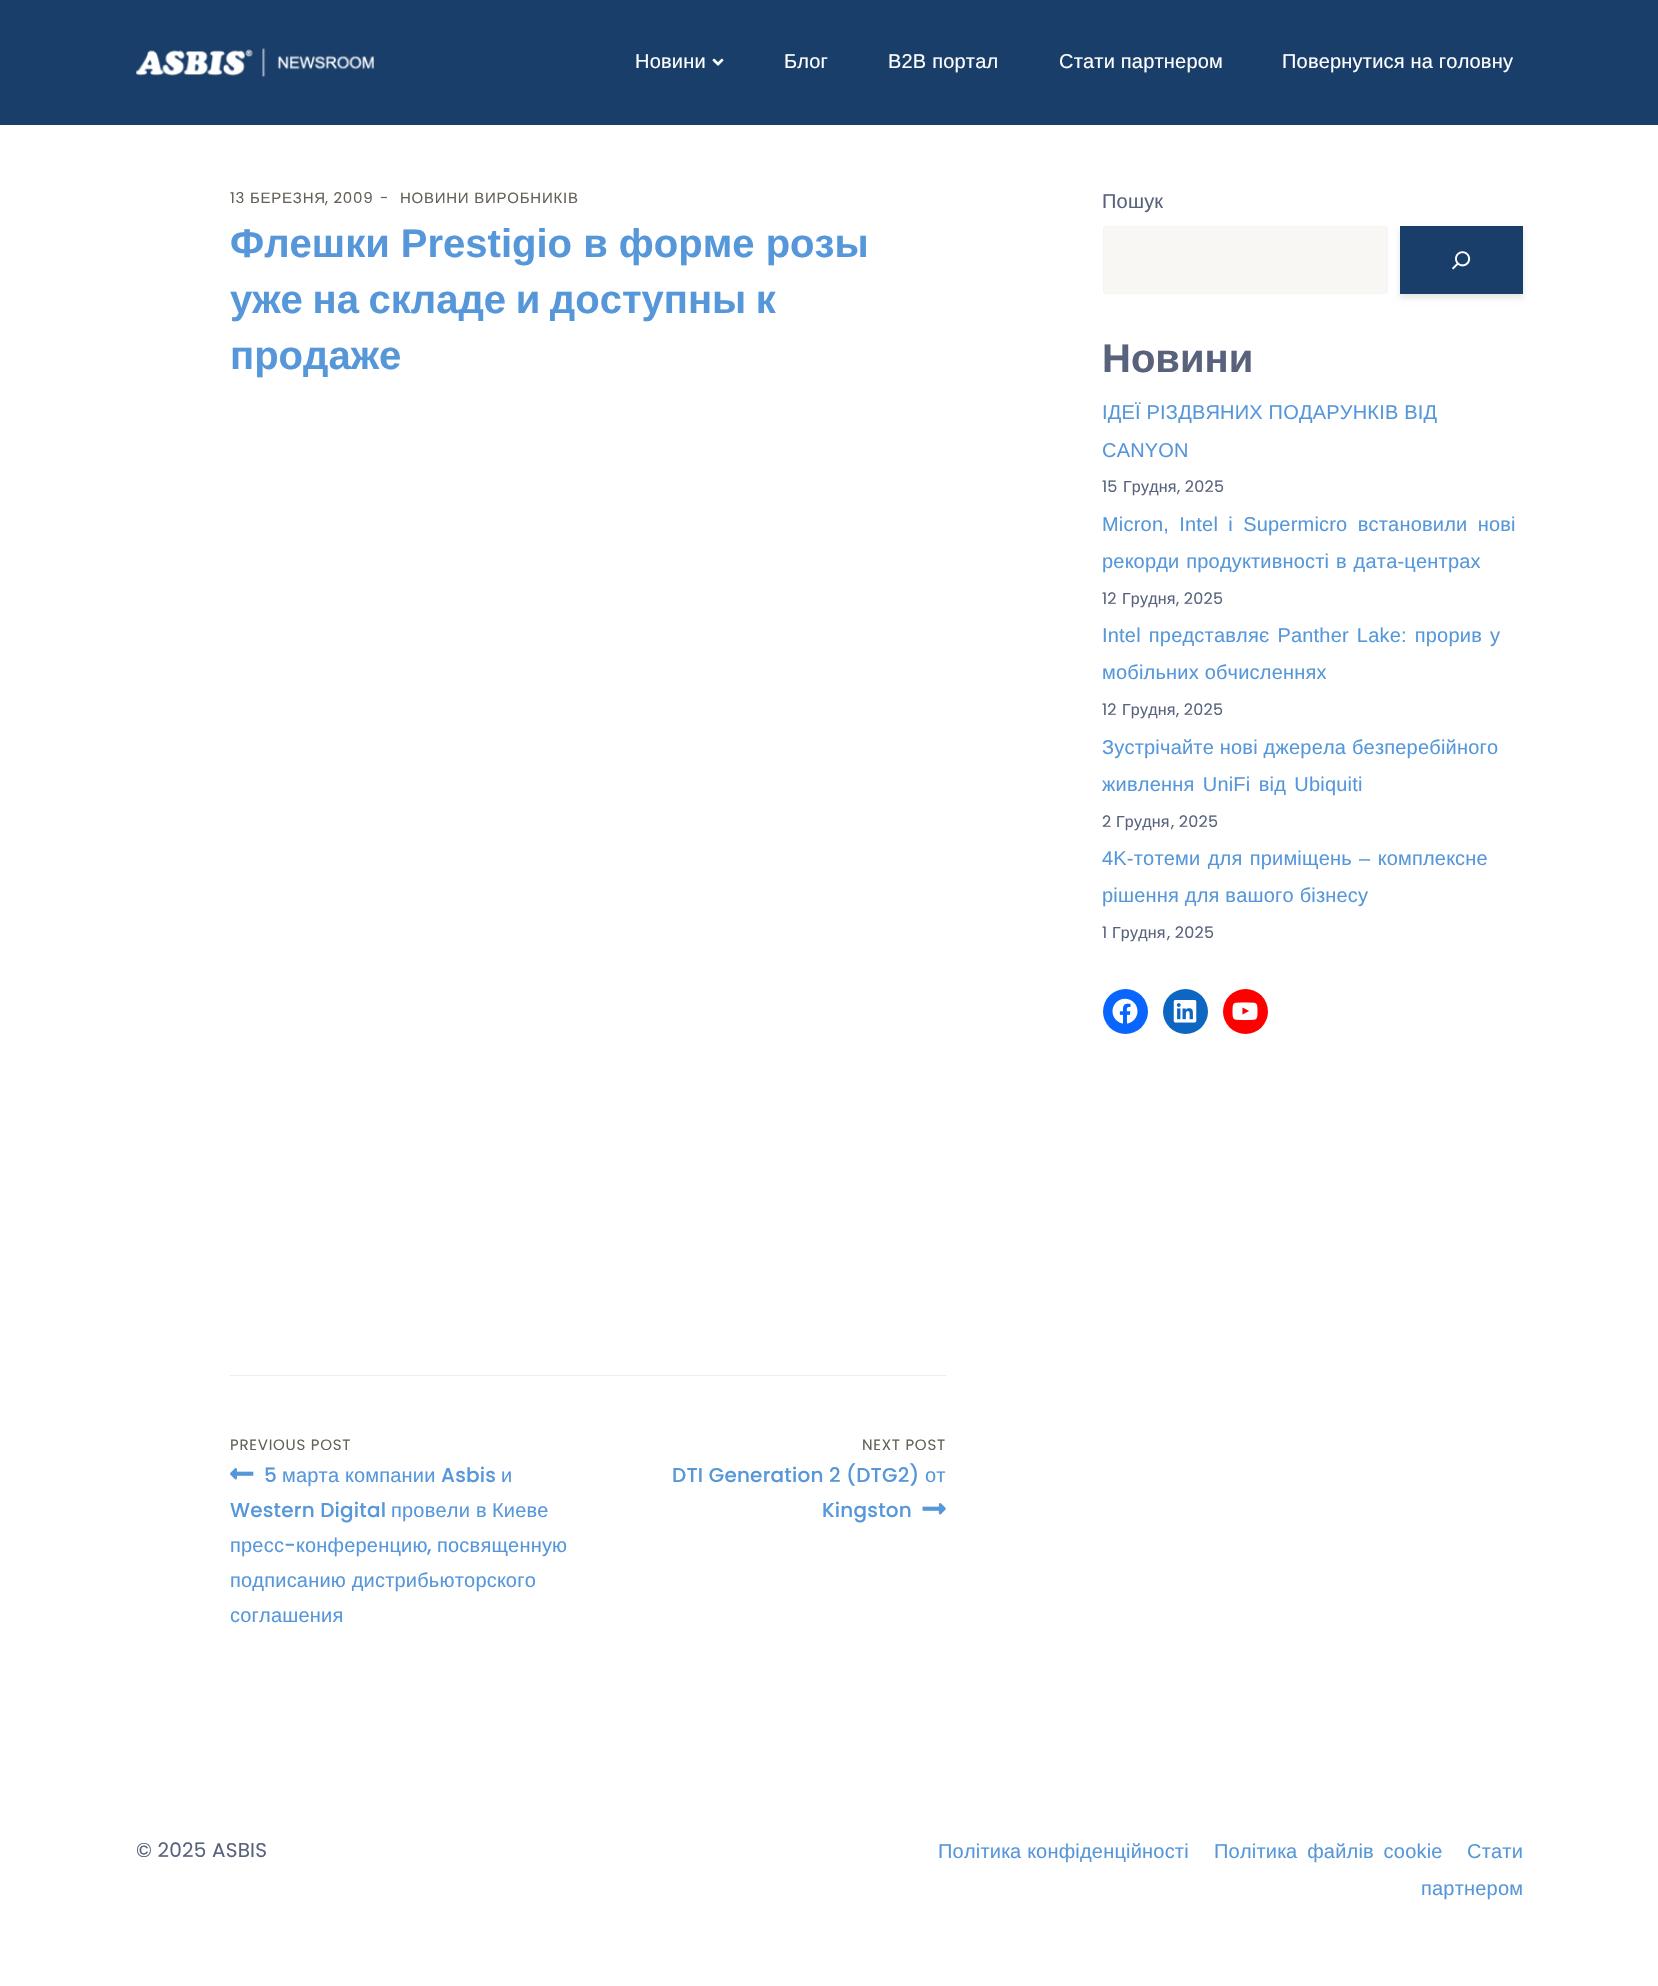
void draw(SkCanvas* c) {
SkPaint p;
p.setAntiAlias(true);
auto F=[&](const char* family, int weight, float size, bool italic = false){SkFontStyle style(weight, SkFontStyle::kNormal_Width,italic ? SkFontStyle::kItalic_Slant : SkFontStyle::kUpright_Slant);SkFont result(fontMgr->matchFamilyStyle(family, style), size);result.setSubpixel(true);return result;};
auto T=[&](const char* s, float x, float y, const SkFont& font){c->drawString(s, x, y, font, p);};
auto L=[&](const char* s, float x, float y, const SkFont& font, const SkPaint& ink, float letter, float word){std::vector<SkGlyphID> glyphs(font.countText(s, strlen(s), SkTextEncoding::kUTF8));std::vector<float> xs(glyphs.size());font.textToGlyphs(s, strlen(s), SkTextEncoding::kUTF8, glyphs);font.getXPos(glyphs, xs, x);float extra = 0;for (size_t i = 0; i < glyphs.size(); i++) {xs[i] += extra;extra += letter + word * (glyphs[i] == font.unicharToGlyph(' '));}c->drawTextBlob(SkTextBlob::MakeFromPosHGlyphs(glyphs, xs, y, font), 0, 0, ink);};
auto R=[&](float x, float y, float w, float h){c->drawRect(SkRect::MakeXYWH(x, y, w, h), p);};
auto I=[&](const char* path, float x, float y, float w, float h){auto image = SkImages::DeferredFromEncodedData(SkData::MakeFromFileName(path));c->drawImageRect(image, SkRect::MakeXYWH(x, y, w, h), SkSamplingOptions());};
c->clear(0xffffffff);
p.setColor(0xff193e6a);
R(0,0,1658,125);
I("1.png",136,48,238,29);
auto f1 = F("Liberation Sans",400,20);
p.setColor(0xffffffff);
L("Новини",635,68,f1,p,.2,0);
I("2.png",712,58,12,8);
L("Блог",784,68,f1,p,.2,0);
L("В2В портал",888,68,f1,p,.2,0);
L("Стати партнером",1059,68,f1,p,.2,0);
L("Повернутися на головну",1282,68,f1,p,.2,0);
auto f2 = F("Poppins",400,15);
p.setColor(0xff646157);
L("13",230,203,f2,p,.75,0);
auto f3 = F("Liberation Sans",400,15);
L("БЕРЕЗНЯ",250,203,f3,p,.75,0);
L(", 2009",325,203,f2,p,.75,0);
L("-",380,203,f2,p,.75,0);
L("НОВИНИ ВИРОБНИКІВ",400,203,f3,p,.75,0);
auto f4 = F("Liberation Sans",700,40);
p.setColor(0xff5697da);
T("Флешки Prestigio в форме розы",230,257,f4);
L("уже на складе и доступны к",230,313,f4,p,0,-1.5);
T("продаже",230,369,f4);
p.setColor(0xffededed);
R(230,1375,716,1);
p.setColor(0xff646157);
L("PREVIOUS POST",230,1450,f2,p,.75,0);
I("3.png",230,1468,24,12);
auto f5 = F("Poppins",500,20);
p.setColor(0xff5697da);
L("5",264,1482,f5,p,.2,0);
L("марта компании",282,1482,f1,p,.2,0);
L("Asbis",441,1482,f5,p,.2,0);
L("и",501,1482,f1,p,.2,0);
L("Western Digital",230,1517,f5,p,.2,0);
L("провели",391,1517,f1,p,.2,0);
L("в",476,1517,f1,p,.2,0);
L("Киеве",492,1517,f1,p,.2,0);
L("пресс",230,1552,f1,p,.2,0);
L("-",284,1552,f5,p,.2,0);
L("конференцию",296,1552,f1,p,.2,0);
L("посвященную",437,1552,f1,p,.2,0);
L(",",427,1552,f5,p,.2,0);
L("подписанию дистрибьюторского",230,1587,f1,p,.2,0);
L("соглашения",230,1622,f1,p,.2,0);
p.setColor(0xff646157);
L("NEXT POST",862,1450,f2,p,.75,0);
p.setColor(0xff5697da);
L("DTI Generation 2 (DTG2)",672,1482,f5,p,.2,0);
L("от",925,1482,f1,p,.2,0);
L("Kingston",822,1517,f5,p,.2,0);
I("4.png",922,1503,24,12);
p.setColor(0xff58627c);
L("Пошук",1102,208,f1,p,.2,0);
p.setColor(0xfff8f7f3);
c->drawRoundRect(SkRect::MakeXYWH(1103.5,226.5,284,67),2,2,p);
p.setStroke(true);
p.setStrokeWidth(1);
p.setColor(0xfff4f4f4);
c->drawRoundRect(SkRect::MakeXYWH(1103.5,226.5,284,67),2,2,p);
p.setStroke(false);
p.setColor(0x1a000000);
p.setMaskFilter(SkMaskFilter::MakeBlur(kNormal_SkBlurStyle, 3));
c->drawRect(SkRect::MakeXYWH(1400,230,123,68),p);
p.setMaskFilter(nullptr);
p.setColor(0xff193e6a);
R(1400,226,123,68);
I("5.png",1452,251,19,19);
p.setColor(0xff58627c);
T("Новини",1102,372,f4);
p.setColor(0xff5697da);
L("ІДЕЇ РІЗДВЯНИХ ПОДАРУНКІВ ВІД",1102,419,f1,p,.2,0);
L("CANYON",1102,457,f1,p,.2,0);
auto f6 = F("Poppins",400,16);
p.setColor(0xff58627c);
L("15",1102,492,f6,p,.2,0);
auto f7 = F("Liberation Sans",400,16);
L("Грудня",1123,492,f7,p,.2,0);
L(", 2025",1177,492,f6,p,.2,0);
p.setColor(0xff5697da);
L("Micron, Intel і Supermicro встановили нові",1102,531,f1,p,.2,4.5);
L("рекорди продуктивності в дата-центрах",1102,568,f1,p,.2,1);
p.setColor(0xff58627c);
L("12",1102,604,f6,p,.2,0);
L("Грудня",1122,604,f7,p,.2,0);
L(", 2025",1176,604,f6,p,.2,0);
p.setColor(0xff5697da);
L("Intel представляє Panther Lake: прорив у",1102,642,f1,p,.2,2.25);
L("мобільних обчисленнях",1102,679,f1,p,.2,0);
p.setColor(0xff58627c);
L("12",1102,715,f6,p,.2,0);
L("Грудня",1122,715,f7,p,.2,0);
L(", 2025",1176,715,f6,p,.2,0);
p.setColor(0xff5697da);
L("Зустрічайте нові джерела безперебійного",1102,754,f1,p,.2,0);
L("живлення UniFi від Ubiquiti",1102,791,f1,p,.2,2.5);
p.setColor(0xff58627c);
L("2",1102,827,f6,p,.2,0);
L("Грудня",1116,827,f7,p,.2,0);
L(", 2025",1171,827,f6,p,.2,0);
p.setColor(0xff5697da);
L("4K-тотеми для приміщень – комплексне",1102,865,f1,p,.2,1.5);
L("рішення для вашого бізнесу",1102,902,f1,p,.2,0);
p.setColor(0xff58627c);
L("1",1102,938,f6,p,.2,0);
L("Грудня",1112,938,f7,p,.2,0);
L(", 2025",1167,938,f6,p,.2,0);
p.setColor(0xff0866ff);
c->drawCircle(1125.5,1011.5,22.5,p);
I("6.png",1112,998,26,26);
p.setColor(0xff0d66c2);
c->drawCircle(1185.5,1011.5,22.5,p);
I("7.png",1173,1000,24,23);
p.setColor(0xffff0000);
c->drawCircle(1245.5,1011.5,22.5,p);
I("8.png",1232,1002,26,19);
auto f8 = F("Poppins",400,20);
p.setColor(0xff58627c);
L("© 2025 ASBIS",136,1857,f8,p,.2,0);
p.setColor(0xff5697da);
L("Політика конфіденційності",938,1858,f1,p,.2,0);
L("Політика файлів cookie",1214,1858,f1,p,.2,4);
L("Стати",1467,1858,f1,p,.2,0);
L("партнером",1421,1895,f1,p,.2,0);
}
